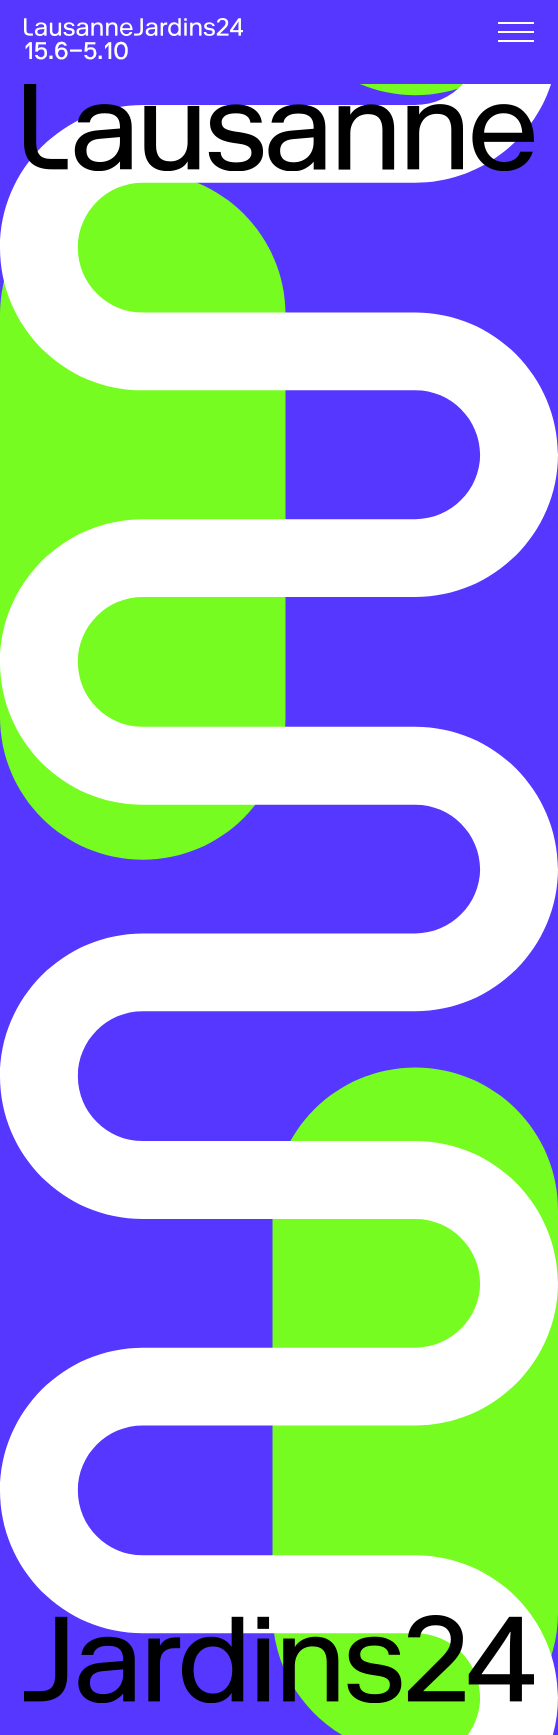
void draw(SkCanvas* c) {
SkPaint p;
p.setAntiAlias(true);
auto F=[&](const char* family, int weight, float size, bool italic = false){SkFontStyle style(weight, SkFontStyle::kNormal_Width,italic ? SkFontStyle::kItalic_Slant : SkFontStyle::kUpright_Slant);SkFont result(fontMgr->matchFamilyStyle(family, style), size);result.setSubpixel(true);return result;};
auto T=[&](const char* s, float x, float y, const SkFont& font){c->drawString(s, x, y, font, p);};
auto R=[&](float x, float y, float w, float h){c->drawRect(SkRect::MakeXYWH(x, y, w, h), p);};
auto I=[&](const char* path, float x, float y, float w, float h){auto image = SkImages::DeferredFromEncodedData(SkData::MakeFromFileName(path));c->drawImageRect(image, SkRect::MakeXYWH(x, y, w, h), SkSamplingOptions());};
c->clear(0xffffffff);
p.setColor(0xff5637ff);
R(0,0,558,84);
p.setColor(0xffffffff);
R(498,22,36,2);
R(498,31,36,2);
R(498,40,36,2);
I("1.png",24,18,219,18);
auto f1 = F("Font",400,24);
T("15.6‒5.10",24,59,f1);
I("2.png",0,84,558,1651);
I("3.png",24,84,510,87);
I("4.png",24,1615,510,88);
}
